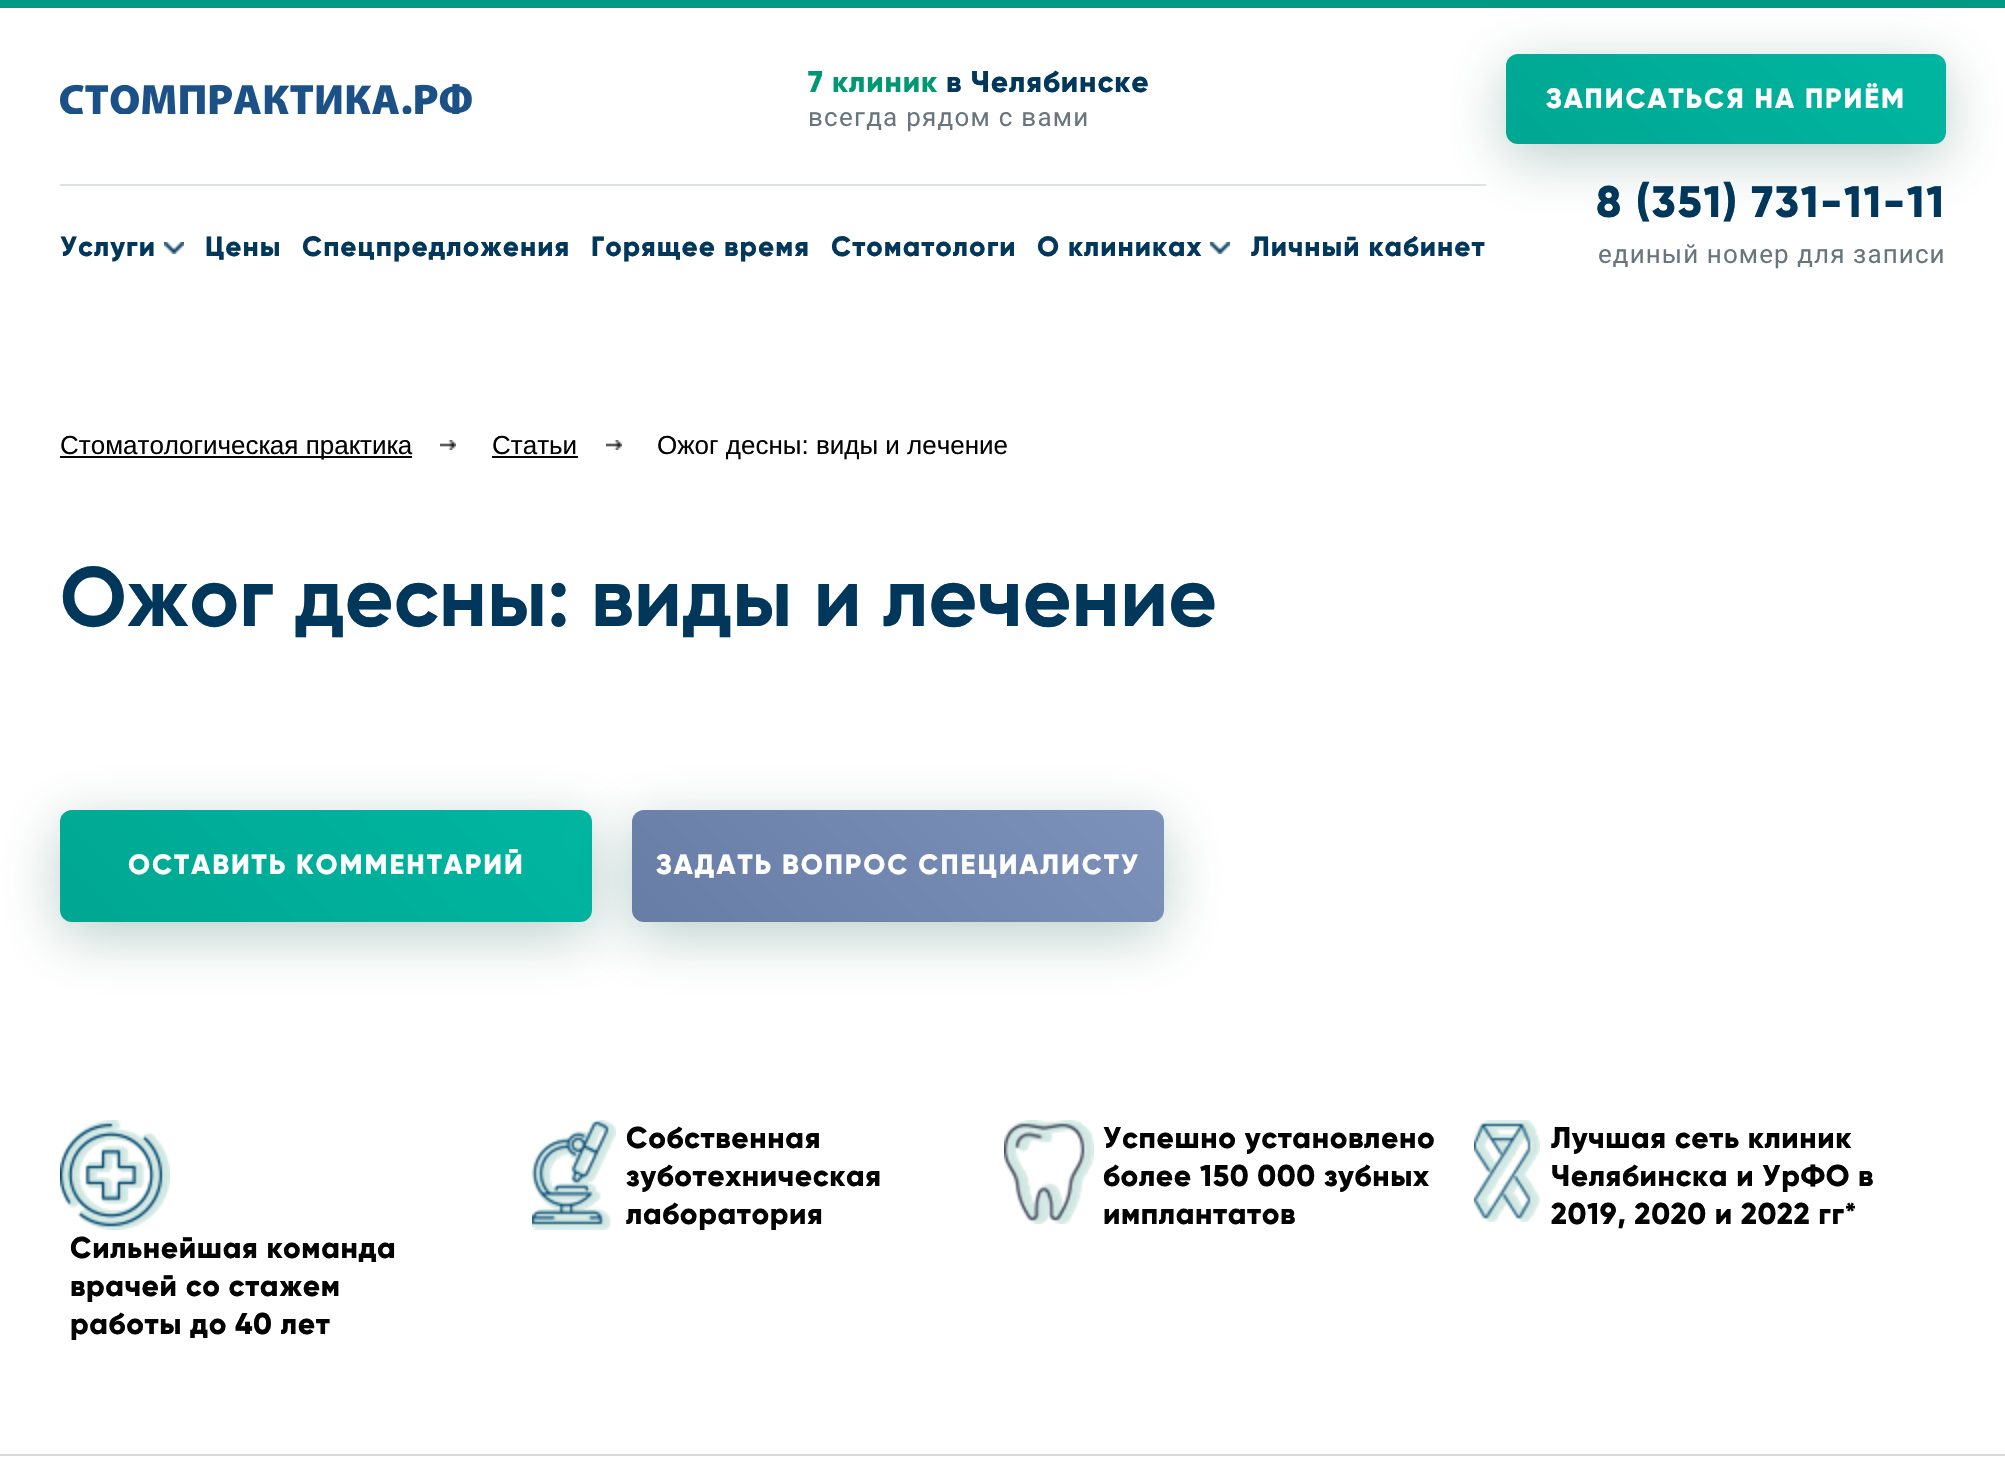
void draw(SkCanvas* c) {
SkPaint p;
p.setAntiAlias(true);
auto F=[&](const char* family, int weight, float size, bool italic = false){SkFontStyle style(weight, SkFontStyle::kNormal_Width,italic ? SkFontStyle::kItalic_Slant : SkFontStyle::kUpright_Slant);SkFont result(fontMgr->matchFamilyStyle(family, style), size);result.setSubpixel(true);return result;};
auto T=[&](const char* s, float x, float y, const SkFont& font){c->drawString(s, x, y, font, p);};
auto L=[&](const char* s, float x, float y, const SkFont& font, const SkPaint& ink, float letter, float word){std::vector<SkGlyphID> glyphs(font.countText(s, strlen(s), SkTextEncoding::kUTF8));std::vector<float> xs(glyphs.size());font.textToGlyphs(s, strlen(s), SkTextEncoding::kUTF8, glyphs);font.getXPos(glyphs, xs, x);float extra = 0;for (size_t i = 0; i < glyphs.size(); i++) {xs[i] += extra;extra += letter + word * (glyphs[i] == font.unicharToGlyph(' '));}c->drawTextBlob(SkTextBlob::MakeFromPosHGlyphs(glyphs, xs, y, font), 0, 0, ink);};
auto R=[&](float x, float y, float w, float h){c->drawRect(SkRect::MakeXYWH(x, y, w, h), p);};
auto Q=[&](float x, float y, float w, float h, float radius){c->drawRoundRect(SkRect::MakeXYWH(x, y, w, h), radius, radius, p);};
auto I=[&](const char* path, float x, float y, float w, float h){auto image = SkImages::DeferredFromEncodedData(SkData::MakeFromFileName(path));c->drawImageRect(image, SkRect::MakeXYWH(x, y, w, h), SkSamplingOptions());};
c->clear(0xffffffff);
p.setColor(0xff009984);
R(0,0,2005,8);
I("1.png",60,84,412,30);
auto f1 = F("Gilroy",800,30);
p.setColor(0xff009872);
L("7 клиник",808,92,f1,p,.9,0);
p.setColor(0xff00375b);
L("в Челябинске",946,92,f1,p,.9,0);
auto f2 = F("Roboto",400,26);
p.setColor(0xff69757d);
L("всегда рядом с вами",808,126,f2,p,1.25,0);
p.setColor(0x4f1e6455);
p.setMaskFilter(SkMaskFilter::MakeBlur(kNormal_SkBlurStyle, 29));
c->drawRoundRect(SkRect::MakeXYWH(1506,68,440,90),12,12,p);
p.setMaskFilter(nullptr);
{
const SkColor colors[] = {0xff00a792,0xff00b6a1};
const float stops[] = {0,1};
const SkPoint ends[] = {{1594,232}, {1859,-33}};
p.setShader(SkGradientShader::MakeLinear(ends, colors, stops, 2, SkTileMode::kClamp));
p.setAlpha(255);
}
Q(1506,54,440,90,12);
auto f3 = F("Gilroy",800,28);
p.setShader(nullptr);
p.setColor(0xffffffff);
L("ЗАПИСАТЬСЯ НА ПРИЁМ",1546,108,f3,p,1.95,0);
p.setColor(0xffdde2e4);
R(60,184,1426,2);
p.setColor(0xff00375b);
L("Услуги",60,256,f3,p,1,0);
I("2.png",164,242,20,12);
L("Цены",205,256,f3,p,1,0);
L("Спецпредложения",302,256,f3,p,1,0);
L("Горящее время",591,256,f3,p,1,0);
L("Стоматологи",831,256,f3,p,1,0);
L("О клиниках",1037,256,f3,p,1,0);
I("2.png",1210,242,20,12);
L("Личный кабинет",1251,256,f3,p,1,0);
auto f4 = F("Gilroy",800,44);
L("8 (351) 731-11-11",1596,217,f4,p,1.75,0);
p.setColor(0xff69757d);
L("единый номер для записи",1598,263,f2,p,1.1,0);
p.setColor(0xff030303);
R(60,456,352,2);
auto f5 = F("Liberation Sans",400,26);
T("Стоматологическая практика",60,454,f5);
I("3.png",440,440,16,10);
T("Статьи",492,454,f5);
R(492,456,86,2);
I("3.png",606,440,16,10);
T("Ожог десны: виды и лечение",657,454,f5);
auto f6 = F("Gilroy",700,84);
p.setColor(0xff00375b);
T("Ожог десны: виды и лечение",60,626,f6);
p.setColor(0x4f1e6455);
p.setMaskFilter(SkMaskFilter::MakeBlur(kNormal_SkBlurStyle, 29));
c->drawRoundRect(SkRect::MakeXYWH(60,824,532,112),12,12,p);
p.setMaskFilter(nullptr);
{
const SkColor colors[] = {0xff00a792,0xff00b6a1};
const float stops[] = {0,1};
const SkPoint ends[] = {{165,1027}, {487,705}};
p.setShader(SkGradientShader::MakeLinear(ends, colors, stops, 2, SkTileMode::kClamp));
p.setAlpha(255);
}
Q(60,810,532,112,12);
p.setShader(nullptr);
p.setColor(0xffffffff);
L("ОСТАВИТЬ КОММЕНТАРИЙ",128,874,f3,p,1.95,0);
p.setColor(0x4f1e6455);
p.setMaskFilter(SkMaskFilter::MakeBlur(kNormal_SkBlurStyle, 29));
c->drawRoundRect(SkRect::MakeXYWH(632,824,532,112),12,12,p);
p.setMaskFilter(nullptr);
{
const SkColor colors[] = {0xff677da6,0xff7c92ba};
const float stops[] = {0,1};
const SkPoint ends[] = {{737,1027}, {1059,705}};
p.setShader(SkGradientShader::MakeLinear(ends, colors, stops, 2, SkTileMode::kClamp));
p.setAlpha(255);
}
Q(632,810,532,112,12);
p.setShader(nullptr);
p.setColor(0xffffffff);
L("ЗАДАТЬ ВОПРОС СПЕЦИАЛИСТУ",656,874,f3,p,1.95,0);
I("4.png",532,1120,84,110);
p.setColor(0xff030303);
L("Собственная",626,1148,f1,p,.6,0);
L("зуботехническая",626,1186,f1,p,.6,0);
L("лаборатория",626,1224,f1,p,.6,0);
I("5.png",1004,1120,90,104);
L("Успешно установлено",1103,1148,f1,p,.6,0);
L("более 150 000 зубных",1103,1186,f1,p,.6,0);
L("имплантатов",1103,1224,f1,p,.6,0);
I("6.png",1474,1120,66,102);
L("Лучшая сеть клиник",1551,1148,f1,p,.6,0);
L("Челябинска и УрФО в",1551,1186,f1,p,.6,0);
L("2019, 2020 и 2022 гг*",1551,1224,f1,p,.6,0);
I("7.png",60,1120,110,110);
L("Сильнейшая команда",70,1258,f1,p,.6,0);
L("врачей со стажем",70,1296,f1,p,.6,0);
L("работы до 40 лет",70,1334,f1,p,.6,0);
p.setColor(0xffdadada);
R(0,1454,2005,2);
}
